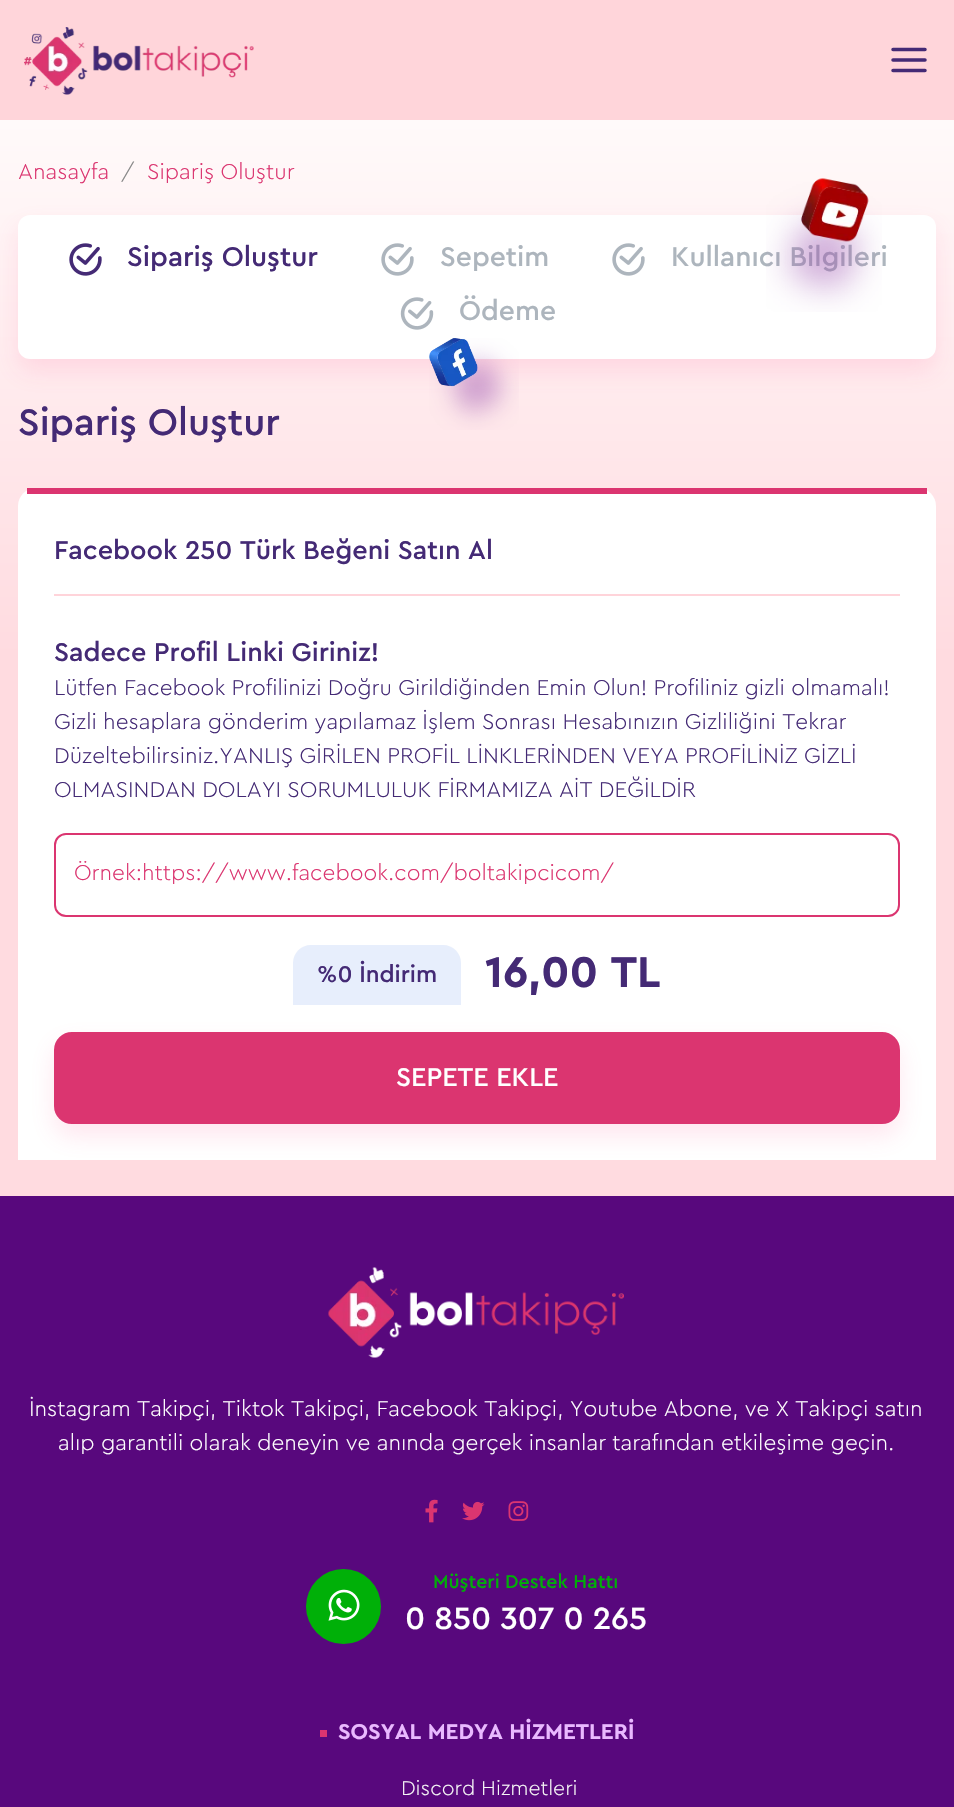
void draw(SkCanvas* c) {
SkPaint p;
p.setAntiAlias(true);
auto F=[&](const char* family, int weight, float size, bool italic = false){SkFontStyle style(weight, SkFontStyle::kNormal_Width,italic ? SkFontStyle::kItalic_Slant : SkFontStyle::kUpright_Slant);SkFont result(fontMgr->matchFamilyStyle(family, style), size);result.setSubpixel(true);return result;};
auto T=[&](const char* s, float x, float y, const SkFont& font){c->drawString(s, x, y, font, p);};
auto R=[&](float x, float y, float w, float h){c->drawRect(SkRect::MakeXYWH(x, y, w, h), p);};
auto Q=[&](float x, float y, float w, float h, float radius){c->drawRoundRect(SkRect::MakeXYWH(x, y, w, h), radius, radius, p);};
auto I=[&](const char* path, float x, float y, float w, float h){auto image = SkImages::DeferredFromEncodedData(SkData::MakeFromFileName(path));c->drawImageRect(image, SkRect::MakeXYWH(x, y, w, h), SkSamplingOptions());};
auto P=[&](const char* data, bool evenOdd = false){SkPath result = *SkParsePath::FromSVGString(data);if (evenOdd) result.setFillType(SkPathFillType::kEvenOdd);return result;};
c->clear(0xffffffff);
p.setColor(0xffffd5da);
R(0,0,954,120);
I("1.png",24,27,230,68);
p.setStroke(true);
p.setStrokeWidth(3.5);
p.setStrokeCap(SkPaint::kRound_Cap);
p.setStrokeJoin(SkPaint::kRound_Join);
p.setColor(0xff442a75);
c->drawPath(P("M893 60h32m-32-10.5h32m-32 21h32"),p);
p.setStroke(false);
{
const SkColor colors[] = {0xfffffafa,0xffffdbe0};
const float stops[] = {0,.5};
const SkPoint ends[] = {{477,120}, {477,1196}};
p.setShader(SkGradientShader::MakeLinear(ends, colors, stops, 2, SkTileMode::kClamp));
p.setAlpha(255);
}
R(0,120,954,1076);
auto f1 = F("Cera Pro",300,22.5);
p.setShader(nullptr);
p.setColor(0xffdb3570);
T("Anasayfa",18,179,f1);
p.setColor(0xff888888);
T("/",121,179,f1);
p.setColor(0xffdb3570);
T("Sipariş Oluştur",147,179,f1);
p.setColor(0x26ff5693);
p.setMaskFilter(SkMaskFilter::MakeBlur(kNormal_SkBlurStyle, 12));
c->drawRoundRect(SkRect::MakeXYWH(18,227,918,144),12,12,p);
p.setMaskFilter(nullptr);
p.setColor(0xffffffff);
Q(18,215,918,144,12);
I("2.png",69,243,33,33);
auto f2 = F("Cera Pro",500,28.25);
p.setColor(0xff442a75);
T("Sipariş Oluştur",127,266,f2);
p.setColor(0xffadb5bd);
T("Kullanıcı Bilgileri",671,266,f2);
I("3.png",766,178,116,134);
I("4.png",381,243,33,33);
T("Sepetim",440,266,f2);
I("4.png",612,243,33,33);
I("5.png",400,297,34,33);
T("Ödeme",459,320,f2);
I("6.png",429,338,90,92);
auto f3 = F("Cera Pro",500,38.75);
p.setColor(0xff442a75);
T("Sipariş Oluştur",18,435,f3);
p.setColor(0xffffffff);
c->drawPath(P("M36 488h882c10 0 18 8 18 18v654h-918v-654c0-10 8-18 18-18z"),p);
p.setColor(0xffdb3570);
R(27,488,900,6);
p.setColor(0xffffd4da);
R(54,594,846,2);
auto f4 = F("Cera Pro",500,27);
p.setColor(0xff442a75);
T("Facebook 250 Türk Beğeni Satın Al",54,559,f4);
T("Sadece Profil Linki Giriniz!",54,661,f4);
T("Lütfen Facebook Profilinizi Doğru Girildiğinden Emin Olun! Profiliniz gizli olmamalı!",54,695,f1);
T("Gizli hesaplara gönderim yapılamaz İşlem Sonrası Hesabınızın Gizliliğini Tekrar",54,729,f1);
T("Düzeltebilirsiniz.YANLIŞ GİRİLEN PROFİL LİNKLERİNDEN VEYA PROFİLİNİZ GİZLİ",54,763,f1);
T("OLMASINDAN DOLAYI SORUMLULUK FİRMAMIZA AİT DEĞİLDİR",54,797,f1);
p.setStroke(true);
p.setStrokeWidth(2);
p.setStrokeCap(SkPaint::kButt_Cap);
p.setStrokeJoin(SkPaint::kMiter_Join);
p.setColor(0xffdb3570);
c->drawRoundRect(SkRect::MakeXYWH(55,834,844,82),11,11,p);
p.setStroke(false);
T("Örnek:https://www.facebook.com/boltakipcicom/",74,880,f1);
p.setColor(0xffe7eefc);
c->drawPath(P("M311 945h132c10 0 18 8 18 18v42h-168v-42c0-10 8-18 18-18z"),p);
auto f5 = F("Cera Pro",500,24);
p.setColor(0xff442a75);
T("%0 İndirim",317,982,f5);
auto f6 = F("Cera Pro",700,45);
T("16,00 TL",485,987,f6);
p.setColor(0x26ff5693);
p.setMaskFilter(SkMaskFilter::MakeBlur(kNormal_SkBlurStyle, 12));
c->drawRoundRect(SkRect::MakeXYWH(54,1044,846,92),18,18,p);
p.setMaskFilter(nullptr);
p.setColor(0xffdb3570);
c->drawRoundRect(SkRect::MakeXYWH(55,1033,844,90),17,17,p);
p.setStroke(true);
c->drawRoundRect(SkRect::MakeXYWH(55,1033,844,90),17,17,p);
p.setStroke(false);
p.setColor(0xffffffff);
T("SEPETE EKLE",396,1086,f4);
p.setColor(0xff58087d);
R(0,1196,954,611);
I("7.png",328,1267,296,91);
p.setColor(0xffffffff);
T("İnstagram Takipçi, Tiktok Takipçi, Facebook Takipçi, Youtube Abone, ve X Takipçi satın",29,1416,f1);
T("alıp garantili olarak deneyin ve anında gerçek insanlar tarafından etkileşime geçin.",58,1450,f1);
I("8.png",425,1499,13,24);
I("9.png",462,1501,23,20);
I("10.png",508,1501,21,20);
p.setColor(0xff00b008);
c->drawCircle(343.5,1606.5,37.5,p);
I("11.png",328,1589,32,32);
auto f7 = F("Cera Pro",500,19.5);
T("Müşteri Destek Hattı",433,1588,f7);
auto f8 = F("Cera Pro",500,32.25);
p.setColor(0xffffffff);
T("0 850 307 0 265",405,1629,f8);
p.setColor(0xffdb3570);
R(320,1730,7,7);
auto f9 = F("Cera Pro",700,22.5);
p.setColor(0xffe9b9ff);
T("SOSYAL MEDYA HİZMETLERİ",338,1739,f9);
auto f10 = F("Cera Pro",300,21);
p.setColor(0xfff6f6f6);
T("Discord Hizmetleri",401,1795,f10);
}
